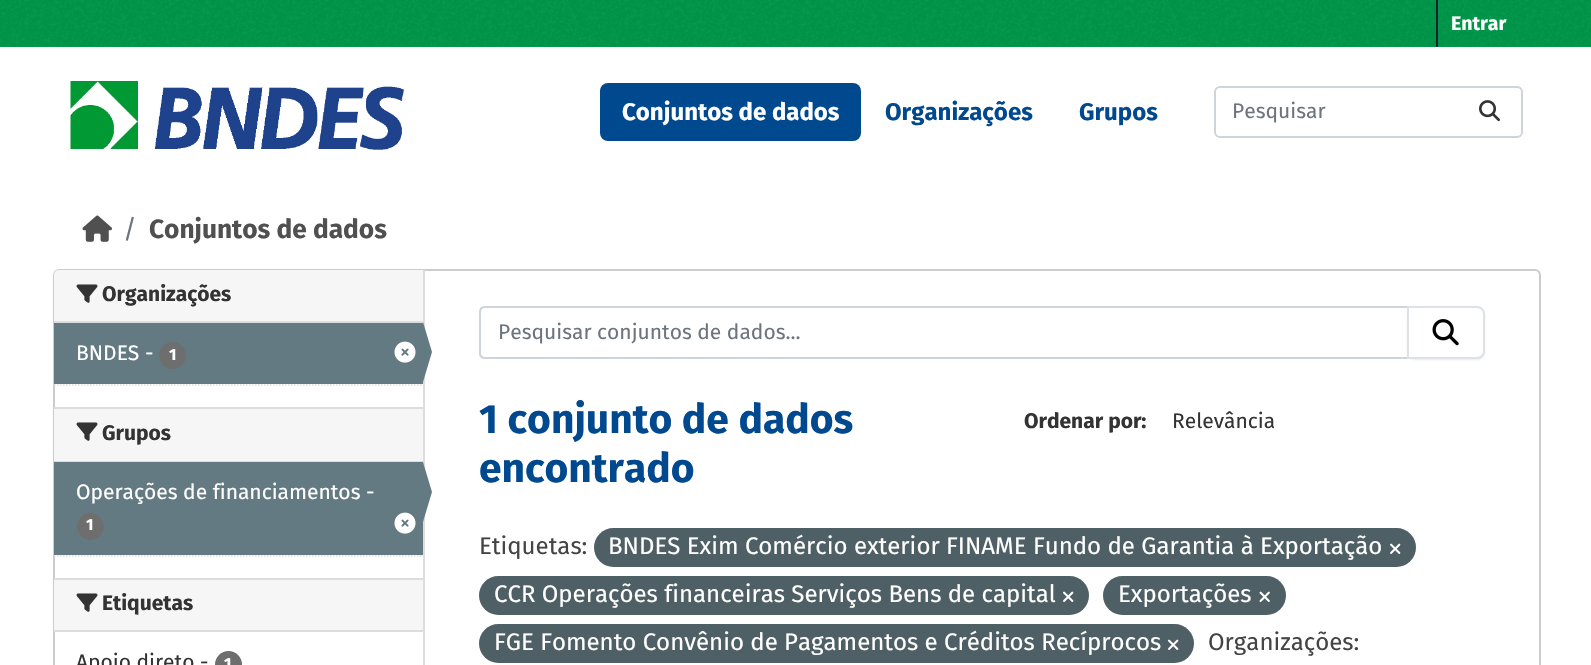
void draw(SkCanvas* c) {
SkPaint p;
p.setAntiAlias(true);
auto F=[&](const char* family, int weight, float size, bool italic = false){SkFontStyle style(weight, SkFontStyle::kNormal_Width,italic ? SkFontStyle::kItalic_Slant : SkFontStyle::kUpright_Slant);SkFont result(fontMgr->matchFamilyStyle(family, style), size);result.setSubpixel(true);return result;};
auto T=[&](const char* s, float x, float y, const SkFont& font){c->drawString(s, x, y, font, p);};
auto R=[&](float x, float y, float w, float h){c->drawRect(SkRect::MakeXYWH(x, y, w, h), p);};
auto Q=[&](float x, float y, float w, float h, float radius){c->drawRoundRect(SkRect::MakeXYWH(x, y, w, h), radius, radius, p);};
auto I=[&](const char* path, float x, float y, float w, float h){auto image = SkImages::DeferredFromEncodedData(SkData::MakeFromFileName(path));c->drawImageRect(image, SkRect::MakeXYWH(x, y, w, h), SkSamplingOptions());};
auto P=[&](const char* data, bool evenOdd = false){SkPath result = *SkParsePath::FromSVGString(data);if (evenOdd) result.setFillType(SkPathFillType::kEvenOdd);return result;};
c->clear(0xffffffff);
p.setColor(0xff00984a);
R(0,0,1591,47);
I("1.png",0,0,1591,46);
p.setColor(0xff00232e);
R(1436,0,2,47);
auto f1 = F("Fira Sans",700,19.5);
p.setColor(0xffffffff);
T("Entrar",1451,30,f1);
I("2.png",70,81,334,70);
p.setColor(0xff01498f);
Q(600,83,261,58,8);
auto f2 = F("Fira Sans",700,24);
p.setColor(0xffffffff);
T("Conjuntos de dados",622,120,f2);
p.setColor(0xff01498f);
T("Organizações",885,120,f2);
T("Grupos",1079,120,f2);
p.setStroke(true);
p.setStrokeWidth(2);
p.setColor(0xffced4da);
c->drawRoundRect(SkRect::MakeXYWH(1215,87,307,50),5,5,p);
auto f3 = F("Fira Sans",400,21);
p.setStroke(false);
p.setColor(0xff6c757d);
T("Pesquisar",1232,118,f3);
I("3.png",1479,100,21,22);
I("4.png",82,215,30,27);
auto f4 = F("Fira Sans",400,26.25);
T("/",123,238,f4);
auto f5 = F("Fira Sans",700,26.25);
p.setColor(0xff505050);
T("Conjuntos de dados",149,238,f5);
p.setStroke(true);
p.setColor(0xffcccccc);
c->drawRoundRect(SkRect::MakeXYWH(54,270,1486,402),5,5,p);
p.setStroke(false);
p.setColor(0xfff6f6f6);
c->drawPath(P("M59 270h364v53h-369v-48c0-3 2-5 5-5z"),p);
p.setColor(0xffdddddd);
R(54,321,369,2);
I("5.png",76,284,22,19);
auto f6 = F("Fira Sans",700,21);
p.setColor(0xff333333);
T("Organizações",102,301,f6);
p.setColor(0xff647a82);
R(54,323,369,61);
p.setColor(0xffffffff);
T("BNDES -",76,360,f3);
p.setColor(0xff6e6e6e);
c->drawCircle(172.5,355.5,13.5,p);
auto f7 = F("Fira Sans",700,16);
p.setColor(0xffffffff);
T("1",169,360,f7);
I("6.png",394,341,22,22);
p.setColor(0xffdddddd);
R(423,270,2,395);
p.setColor(0xff647a82);
c->drawPath(P("M423 382v-60l9 30z"),p);
p.setStroke(true);
p.setStrokeWidth(1.5);
p.setColor(0xffdddddd);
p.setPathEffect(SkDashPathEffect::Make({{1.5f,1.5f}}, 0));
c->drawPath(P("M54 385h369"),p);
p.setPathEffect(nullptr);
p.setStroke(false);
p.setColor(0xfff6f6f6);
R(54,409,369,52);
p.setColor(0xffdddddd);
R(54,407,369,2);
R(54,461,369,1);
I("5.png",76,422,22,19);
p.setColor(0xff333333);
T("Grupos",102,440,f6);
p.setColor(0xff647a82);
R(54,462,369,93);
p.setColor(0xffffffff);
T("Operações de financiamentos -",76,499,f3);
p.setColor(0xff647a82);
c->drawPath(P("M423 522v-60l9 30z"),p);
p.setColor(0xff6e6e6e);
c->drawCircle(90.5,526.5,13.5,p);
p.setColor(0xffffffff);
T("1",86,530,f7);
I("6.png",394,512,22,22);
p.setStroke(true);
p.setColor(0xffdddddd);
p.setPathEffect(SkDashPathEffect::Make({{1.5f,1.5f}}, 0));
c->drawPath(P("M54 556h369"),p);
p.setPathEffect(nullptr);
p.setStroke(false);
p.setColor(0xfff6f6f6);
R(54,580,369,50);
p.setColor(0xffdddddd);
R(54,578,369,2);
R(54,630,369,2);
I("5.png",76,593,22,19);
p.setColor(0xff333333);
T("Etiquetas",102,610,f6);
T("Apoio direto -",76,669,f3);
p.setColor(0xff6e6e6e);
c->drawCircle(228.5,664.5,13.5,p);
p.setColor(0xffffffff);
T("1",224,669,f7);
p.setStroke(true);
p.setStrokeWidth(2);
p.setColor(0xffced4da);
c->drawPath(P("M485 307h923v51h-923c-3 0-5-2-5-5v-41c0-3 2-5 5-5z"),p);
p.setStroke(false);
p.setColor(0xff6c757d);
T("Pesquisar conjuntos de dados...",498,339,f3);
p.setColor(0x12000000);
p.setMaskFilter(SkMaskFilter::MakeBlur(kNormal_SkBlurStyle, 1));
c->drawRoundRect(SkRect::MakeXYWH(1407,308,78,52),8,8,p);
p.setMaskFilter(nullptr);
p.setColor(0xffffffff);
c->drawPath(P("M1408 307h69c4 0 7 3 7 7v37c0 4-3 7-7 7h-69z"),p);
p.setStroke(true);
p.setColor(0xffdee2e6);
c->drawPath(P("M1408 307h69c4 0 7 3 7 7v37c0 4-3 7-7 7h-69z"),p);
I("7.png",1432,319,27,27);
auto f8 = F("Fira Sans",700,40.75);
p.setStroke(false);
p.setColor(0xff01498f);
T("1 conjunto de dados",479,433,f8);
T("encontrado",479,482,f8);
p.setColor(0xff333333);
T("Ordenar por:",1024,428,f6);
T("Relevância",1172,428,f3);
auto f9 = F("Fira Sans",400,24);
p.setColor(0xff444444);
T("Etiquetas:",479,554,f9);
p.setColor(0xff4e5f65);
Q(594,528,822,39,19.5);
p.setColor(0xffffffff);
T("BNDES Exim Comércio exterior FINAME Fundo de Garantia à Exportação",608,554,f9);
I("8.png",1390,543,11,11);
p.setColor(0xff4e5f65);
Q(479,576,610,39,19.5);
p.setColor(0xffffffff);
T("CCR Operações financeiras Serviços Bens de capital",494,602,f9);
I("8.png",1063,591,11,11);
p.setColor(0xff4e5f65);
Q(1103,576,183,39,19.5);
p.setColor(0xffffffff);
T("Exportações",1118,602,f9);
I("9.png",1259,591,11,11);
p.setColor(0xff4e5f65);
Q(479,624,715,39,19.5);
p.setColor(0xffffffff);
T("FGE Fomento Convênio de Pagamentos e Créditos Recíprocos",494,650,f9);
I("8.png",1168,639,11,11);
p.setColor(0xff444444);
T("Organizações:",1208,650,f9);
}
